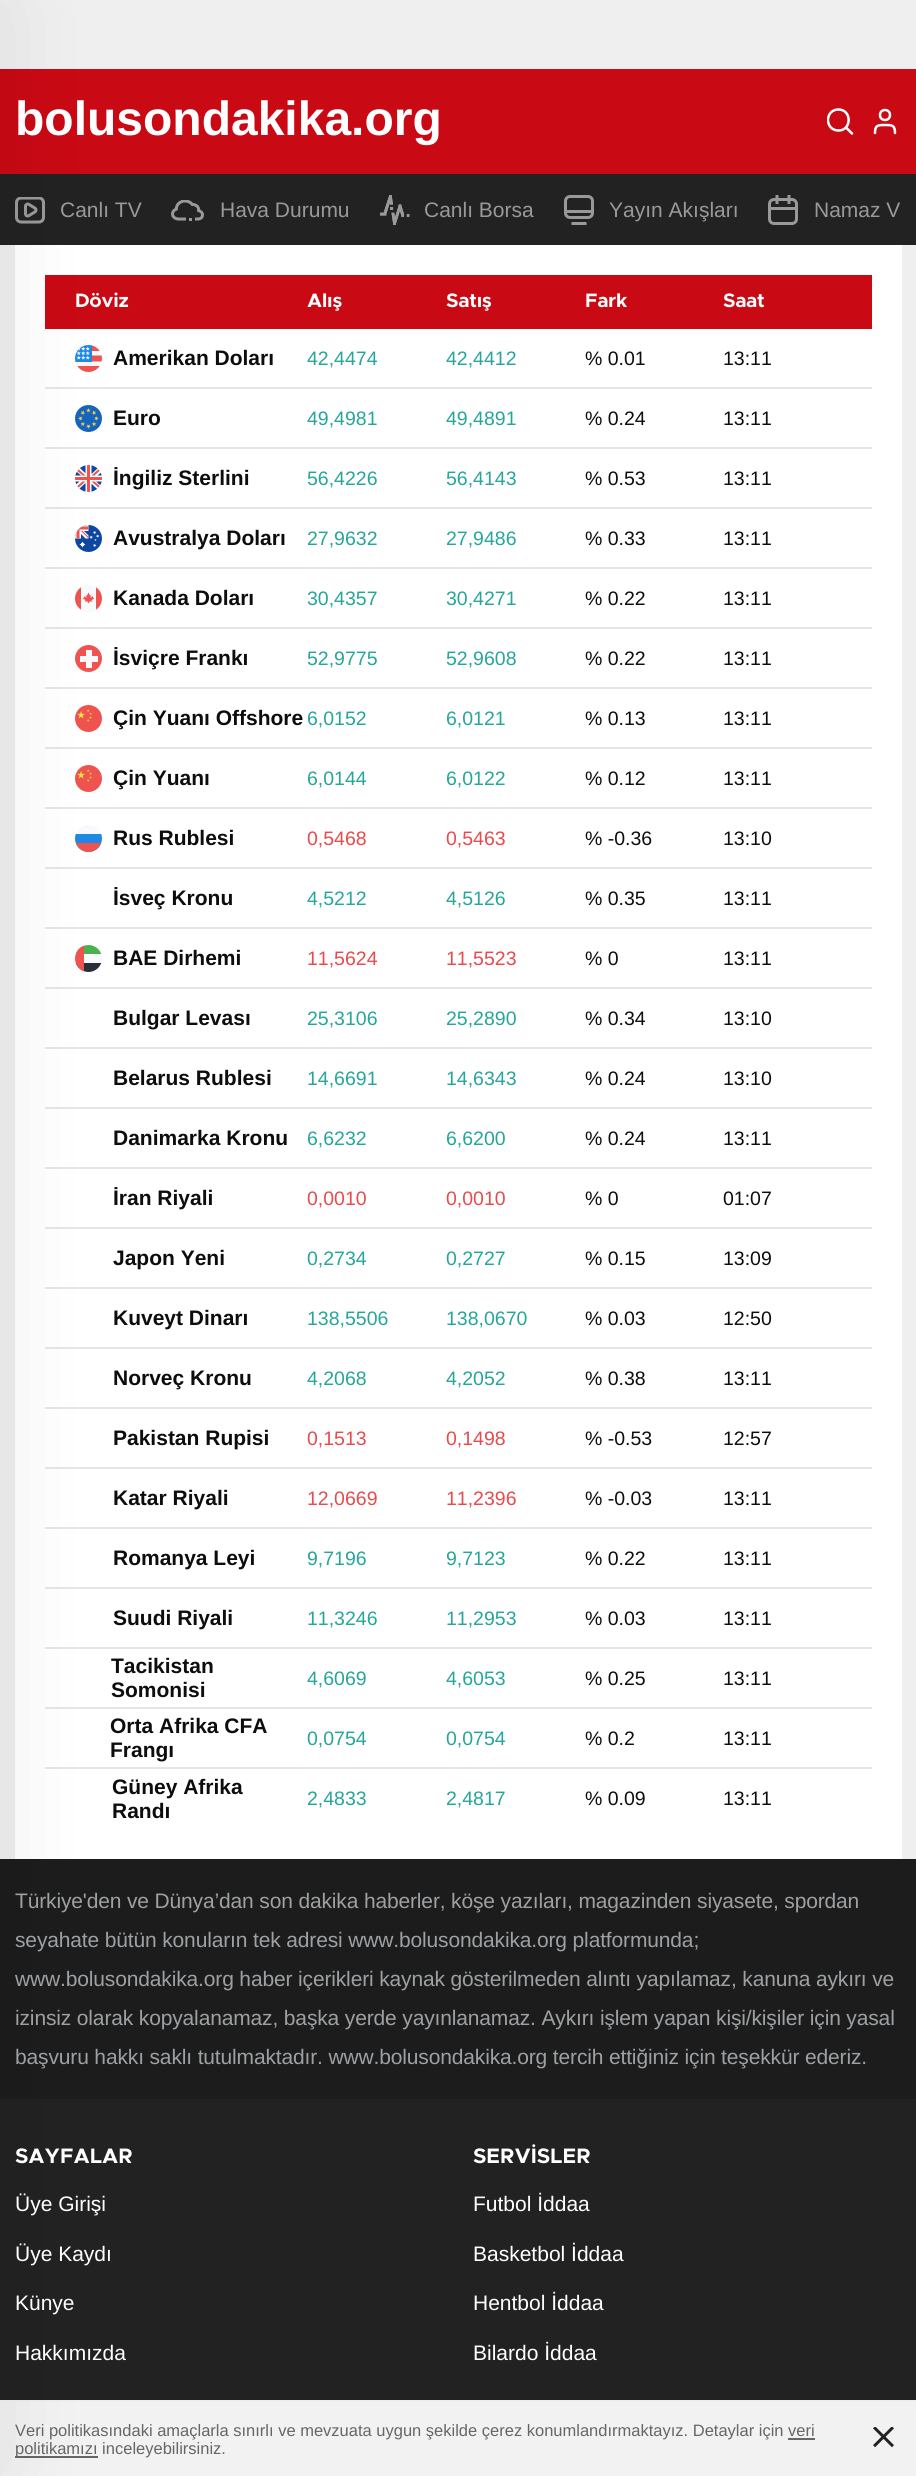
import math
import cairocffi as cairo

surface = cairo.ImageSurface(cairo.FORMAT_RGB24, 916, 2476)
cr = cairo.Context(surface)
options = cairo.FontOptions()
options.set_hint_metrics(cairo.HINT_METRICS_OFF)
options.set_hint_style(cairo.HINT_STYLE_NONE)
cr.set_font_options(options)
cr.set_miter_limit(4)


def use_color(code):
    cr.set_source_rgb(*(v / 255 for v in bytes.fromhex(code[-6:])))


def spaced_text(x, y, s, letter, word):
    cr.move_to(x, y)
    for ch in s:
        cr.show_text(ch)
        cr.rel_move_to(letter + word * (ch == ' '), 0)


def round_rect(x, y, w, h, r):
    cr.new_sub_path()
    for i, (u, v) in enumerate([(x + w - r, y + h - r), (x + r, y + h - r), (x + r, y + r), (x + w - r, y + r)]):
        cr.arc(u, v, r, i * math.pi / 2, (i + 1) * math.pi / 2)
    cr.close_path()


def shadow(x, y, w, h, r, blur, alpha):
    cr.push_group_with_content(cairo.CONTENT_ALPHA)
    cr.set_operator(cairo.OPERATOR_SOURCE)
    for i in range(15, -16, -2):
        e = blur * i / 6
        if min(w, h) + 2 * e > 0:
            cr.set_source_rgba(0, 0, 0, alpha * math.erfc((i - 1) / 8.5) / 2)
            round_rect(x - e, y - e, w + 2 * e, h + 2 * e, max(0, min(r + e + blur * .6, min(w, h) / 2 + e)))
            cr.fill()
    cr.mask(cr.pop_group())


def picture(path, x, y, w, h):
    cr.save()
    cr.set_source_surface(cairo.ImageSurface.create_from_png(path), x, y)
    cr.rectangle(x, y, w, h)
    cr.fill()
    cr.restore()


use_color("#efefef")
cr.paint()
use_color("#c90914")
cr.rectangle(0, 69, 916, 105)
cr.fill()
use_color("#222222")
cr.rectangle(0, 174, 916, 71)
cr.fill()
picture("img1.png", 15, 197, 30, 27)
use_color("#ffffff")
cr.rectangle(15, 245, 887, 1614)
cr.fill()
use_color("#c90914")
cr.rectangle(45, 275, 827, 54)
cr.fill()
use_color("#e6e6e6")
cr.rectangle(45, 387, 827, 2)
cr.fill()
picture("img6.png", 75, 345, 27, 27)
cr.rectangle(45, 447, 827, 2)
cr.fill()
picture("img7.png", 75, 405, 27, 27)
cr.rectangle(45, 507, 827, 2)
cr.fill()
picture("img8.png", 75, 465, 27, 27)
cr.rectangle(45, 567, 827, 2)
cr.fill()
picture("img9.png", 75, 525, 27, 27)
cr.rectangle(45, 627, 827, 2)
cr.fill()
picture("img10.png", 75, 585, 27, 27)
cr.rectangle(45, 687, 827, 2)
cr.fill()
use_color("#ef5350")
cr.arc(88.5, 658.5, 13.5, 0, 2 * math.pi)
cr.fill()
use_color("#f8f9fd")
cr.rectangle(80, 656, 18, 6)
cr.fill()
cr.rectangle(86, 650, 6, 18)
cr.fill()
use_color("#e6e6e6")
cr.rectangle(45, 747, 827, 2)
cr.fill()
picture("img11.png", 75, 705, 27, 27)
cr.rectangle(45, 807, 827, 2)
cr.fill()
picture("img11.png", 75, 765, 27, 27)
cr.rectangle(45, 867, 827, 2)
cr.fill()
use_color("#f8f9fd")
cr.arc(88.5, 838.5, 13.5, 0, 2 * math.pi)
cr.fill()
cr.save()
round_rect(75, 825, 27, 27, 13.5)
cr.clip()
use_color("#1e88e5")
cr.new_path()
cr.move_to(75, 834)
cr.line_to(102, 834)
cr.line_to(102, 838.5)
cr.curve_to(102, 846, 96, 852, 88.5, 852)
cr.curve_to(81, 852, 75, 846, 75, 838.5)
cr.close_path()
cr.fill()
use_color("#ef5350")
cr.rectangle(75, 843, 27, 9)
cr.fill()
cr.restore()
use_color("#e6e6e6")
cr.rectangle(45, 927, 827, 2)
cr.fill()
cr.rectangle(45, 987, 827, 2)
cr.fill()
cr.save()
round_rect(75, 945, 27, 27, 13.5)
cr.clip()
use_color("#4caf50")
cr.rectangle(75, 945, 27, 9)
cr.fill()
use_color("#f8f9fd")
cr.rectangle(75, 954, 27, 9)
cr.fill()
use_color("#2a2e39")
cr.rectangle(75, 963, 27, 9)
cr.fill()
use_color("#ef5350")
cr.rectangle(75, 945, 9, 27)
cr.fill()
cr.restore()
cr.rectangle(45, 1047, 827, 2)
cr.fill()
cr.rectangle(45, 1107, 827, 2)
cr.fill()
cr.rectangle(45, 1167, 827, 2)
cr.fill()
cr.rectangle(45, 1227, 827, 2)
cr.fill()
cr.rectangle(45, 1287, 827, 2)
cr.fill()
cr.rectangle(45, 1347, 827, 2)
cr.fill()
cr.rectangle(45, 1407, 827, 2)
cr.fill()
cr.rectangle(45, 1467, 827, 2)
cr.fill()
cr.rectangle(45, 1527, 827, 2)
cr.fill()
cr.rectangle(45, 1587, 827, 2)
cr.fill()
cr.rectangle(45, 1647, 827, 2)
cr.fill()
cr.rectangle(45, 1707, 827, 2)
cr.fill()
cr.rectangle(45, 1767, 827, 2)
cr.fill()
use_color("#222222")
cr.rectangle(0, 2099, 916, 377)
cr.fill()
use_color("#1c1c1c")
cr.rectangle(0, 1859, 916, 240)
cr.fill()
cr.set_source_rgba(1, 1, 1, 0.94)
cr.rectangle(0, 2402, 916, 74)
cr.fill()
use_color("#eeeeee")
cr.rectangle(0, 2400, 916, 2)
cr.fill()
use_color("#666666")
cr.rectangle(15, 2456, 83, 2)
cr.fill()
use_color("#000000")
shadow(-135, 8, 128, 2461, 0, 45, 0.1)
cr.select_font_face("Liberation Sans", cairo.FONT_SLANT_NORMAL, cairo.FONT_WEIGHT_BOLD)
cr.set_font_size(48)
use_color("#ffffff")
cr.move_to(15, 135)
cr.show_text("bolusondakika.org")
cr.save()
cr.rectangle(827, 108, 27, 27)
cr.clip()
cr.new_path()
cr.move_to(838.5, 130.5)
cr.curve_to(852, 130.5, 852, 109.5, 838.5, 109.5)
cr.curve_to(824.5, 109.5, 824.5, 130.5, 838.5, 130.5)
cr.close_path()
cr.set_line_width(2.5)
cr.set_line_cap(cairo.LINE_CAP_ROUND)
cr.set_line_join(cairo.LINE_JOIN_ROUND)
cr.stroke()
cr.restore()
cr.new_path()
cr.move_to(846, 127.5)
cr.line_to(852, 133.5)
cr.move_to(895, 133)
cr.curve_to(895, 125, 892, 125, 885, 125)
cr.curve_to(878, 125, 875, 125, 875, 133)
cr.set_line_width(2.5)
cr.set_line_cap(cairo.LINE_CAP_ROUND)
cr.set_line_join(cairo.LINE_JOIN_ROUND)
cr.stroke()
cr.arc(885, 115, 5, 0, 2 * math.pi)
cr.set_line_cap(cairo.LINE_CAP_BUTT)
cr.set_line_join(cairo.LINE_JOIN_MITER)
cr.stroke()
cr.select_font_face("Liberation Sans")
cr.set_font_size(21)
use_color("#999999")
cr.move_to(60, 217)
cr.show_text("Canlı TV")
picture("img2.png", 171, 200, 33, 21)
cr.move_to(220, 217)
cr.show_text("Hava Durumu")
picture("img3.png", 380, 195, 30, 30)
cr.move_to(424, 217)
cr.show_text("Canlı Borsa")
picture("img4.png", 564, 195, 30, 30)
cr.move_to(609, 217)
cr.show_text("Yayın Akışları")
picture("img5.png", 768, 195, 30, 30)
cr.move_to(814, 217)
cr.show_text("Namaz V")
cr.select_font_face("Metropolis", cairo.FONT_SLANT_NORMAL, cairo.FONT_WEIGHT_BOLD)
cr.set_font_size(19.5)
use_color("#ffffff")
cr.move_to(75, 307)
cr.show_text("Döviz")
cr.move_to(307, 307)
cr.show_text("Alış")
cr.move_to(446, 307)
cr.show_text("Satış")
cr.move_to(585, 307)
cr.show_text("Fark")
cr.move_to(723, 307)
cr.show_text("Saat")
cr.select_font_face("Liberation Sans", cairo.FONT_SLANT_NORMAL, cairo.FONT_WEIGHT_BOLD)
cr.set_font_size(21)
use_color("#0d0d0d")
cr.move_to(113, 365)
cr.show_text("Amerikan Doları")
cr.select_font_face("Liberation Sans")
cr.set_font_size(19.5)
use_color("#26a69a")
cr.move_to(307, 365)
cr.show_text("42,4474")
cr.move_to(446, 365)
cr.show_text("42,4412")
use_color("#0d0d0d")
cr.move_to(585, 365)
cr.show_text("% 0.01")
cr.move_to(723, 365)
cr.show_text("13:11")
cr.select_font_face("Liberation Sans", cairo.FONT_SLANT_NORMAL, cairo.FONT_WEIGHT_BOLD)
cr.set_font_size(21)
cr.move_to(113, 425)
cr.show_text("Euro")
cr.select_font_face("Liberation Sans")
cr.set_font_size(19.5)
use_color("#26a69a")
cr.move_to(307, 425)
cr.show_text("49,4981")
cr.move_to(446, 425)
cr.show_text("49,4891")
use_color("#0d0d0d")
cr.move_to(585, 425)
cr.show_text("% 0.24")
cr.move_to(723, 425)
cr.show_text("13:11")
cr.select_font_face("Liberation Sans", cairo.FONT_SLANT_NORMAL, cairo.FONT_WEIGHT_BOLD)
cr.set_font_size(21)
cr.move_to(113, 485)
cr.show_text("İngiliz Sterlini")
cr.select_font_face("Liberation Sans")
cr.set_font_size(19.5)
use_color("#26a69a")
cr.move_to(307, 485)
cr.show_text("56,4226")
cr.move_to(446, 485)
cr.show_text("56,4143")
use_color("#0d0d0d")
cr.move_to(585, 485)
cr.show_text("% 0.53")
cr.move_to(723, 485)
cr.show_text("13:11")
cr.select_font_face("Liberation Sans", cairo.FONT_SLANT_NORMAL, cairo.FONT_WEIGHT_BOLD)
cr.set_font_size(21)
cr.move_to(113, 545)
cr.show_text("Avustralya Doları")
cr.select_font_face("Liberation Sans")
cr.set_font_size(19.5)
use_color("#26a69a")
cr.move_to(307, 545)
cr.show_text("27,9632")
cr.move_to(446, 545)
cr.show_text("27,9486")
use_color("#0d0d0d")
cr.move_to(585, 545)
cr.show_text("% 0.33")
cr.move_to(723, 545)
cr.show_text("13:11")
cr.select_font_face("Liberation Sans", cairo.FONT_SLANT_NORMAL, cairo.FONT_WEIGHT_BOLD)
cr.set_font_size(21)
cr.move_to(113, 605)
cr.show_text("Kanada Doları")
cr.select_font_face("Liberation Sans")
cr.set_font_size(19.5)
use_color("#26a69a")
cr.move_to(307, 605)
cr.show_text("30,4357")
cr.move_to(446, 605)
cr.show_text("30,4271")
use_color("#0d0d0d")
cr.move_to(585, 605)
cr.show_text("% 0.22")
cr.move_to(723, 605)
cr.show_text("13:11")
cr.select_font_face("Liberation Sans", cairo.FONT_SLANT_NORMAL, cairo.FONT_WEIGHT_BOLD)
cr.set_font_size(21)
cr.move_to(113, 665)
cr.show_text("İsviçre Frankı")
cr.select_font_face("Liberation Sans")
cr.set_font_size(19.5)
use_color("#26a69a")
cr.move_to(307, 665)
cr.show_text("52,9775")
cr.move_to(446, 665)
cr.show_text("52,9608")
use_color("#0d0d0d")
cr.move_to(585, 665)
cr.show_text("% 0.22")
cr.move_to(723, 665)
cr.show_text("13:11")
cr.select_font_face("Liberation Sans", cairo.FONT_SLANT_NORMAL, cairo.FONT_WEIGHT_BOLD)
cr.set_font_size(21)
cr.move_to(113, 725)
cr.show_text("Çin Yuanı Offshore")
cr.select_font_face("Liberation Sans")
cr.set_font_size(19.5)
use_color("#26a69a")
cr.move_to(307, 725)
cr.show_text("6,0152")
cr.move_to(446, 725)
cr.show_text("6,0121")
use_color("#0d0d0d")
cr.move_to(585, 725)
cr.show_text("% 0.13")
cr.move_to(723, 725)
cr.show_text("13:11")
cr.select_font_face("Liberation Sans", cairo.FONT_SLANT_NORMAL, cairo.FONT_WEIGHT_BOLD)
cr.set_font_size(21)
cr.move_to(113, 785)
cr.show_text("Çin Yuanı")
cr.select_font_face("Liberation Sans")
cr.set_font_size(19.5)
use_color("#26a69a")
cr.move_to(307, 785)
cr.show_text("6,0144")
cr.move_to(446, 785)
cr.show_text("6,0122")
use_color("#0d0d0d")
cr.move_to(585, 785)
cr.show_text("% 0.12")
cr.move_to(723, 785)
cr.show_text("13:11")
cr.select_font_face("Liberation Sans", cairo.FONT_SLANT_NORMAL, cairo.FONT_WEIGHT_BOLD)
cr.set_font_size(21)
cr.move_to(113, 845)
cr.show_text("Rus Rublesi")
cr.select_font_face("Liberation Sans")
cr.set_font_size(19.5)
use_color("#e74b4c")
cr.move_to(307, 845)
cr.show_text("0,5468")
cr.move_to(446, 845)
cr.show_text("0,5463")
use_color("#0d0d0d")
cr.move_to(585, 845)
cr.show_text("% -0.36")
cr.move_to(723, 845)
cr.show_text("13:10")
cr.select_font_face("Liberation Sans", cairo.FONT_SLANT_NORMAL, cairo.FONT_WEIGHT_BOLD)
cr.set_font_size(21)
cr.move_to(113, 905)
cr.show_text("İsveç Kronu")
cr.select_font_face("Liberation Sans")
cr.set_font_size(19.5)
use_color("#26a69a")
cr.move_to(307, 905)
cr.show_text("4,5212")
cr.move_to(446, 905)
cr.show_text("4,5126")
use_color("#0d0d0d")
cr.move_to(585, 905)
cr.show_text("% 0.35")
cr.move_to(723, 905)
cr.show_text("13:11")
cr.select_font_face("Liberation Sans", cairo.FONT_SLANT_NORMAL, cairo.FONT_WEIGHT_BOLD)
cr.set_font_size(21)
cr.move_to(113, 965)
cr.show_text("BAE Dirhemi")
cr.select_font_face("Liberation Sans")
cr.set_font_size(19.5)
use_color("#e74b4c")
cr.move_to(307, 965)
cr.show_text("11,5624")
cr.move_to(446, 965)
cr.show_text("11,5523")
use_color("#0d0d0d")
cr.move_to(585, 965)
cr.show_text("% 0")
cr.move_to(723, 965)
cr.show_text("13:11")
cr.select_font_face("Liberation Sans", cairo.FONT_SLANT_NORMAL, cairo.FONT_WEIGHT_BOLD)
cr.set_font_size(21)
cr.move_to(113, 1025)
cr.show_text("Bulgar Levası")
cr.select_font_face("Liberation Sans")
cr.set_font_size(19.5)
use_color("#26a69a")
cr.move_to(307, 1025)
cr.show_text("25,3106")
cr.move_to(446, 1025)
cr.show_text("25,2890")
use_color("#0d0d0d")
cr.move_to(585, 1025)
cr.show_text("% 0.34")
cr.move_to(723, 1025)
cr.show_text("13:10")
cr.select_font_face("Liberation Sans", cairo.FONT_SLANT_NORMAL, cairo.FONT_WEIGHT_BOLD)
cr.set_font_size(21)
cr.move_to(113, 1085)
cr.show_text("Belarus Rublesi")
cr.select_font_face("Liberation Sans")
cr.set_font_size(19.5)
use_color("#26a69a")
cr.move_to(307, 1085)
cr.show_text("14,6691")
cr.move_to(446, 1085)
cr.show_text("14,6343")
use_color("#0d0d0d")
cr.move_to(585, 1085)
cr.show_text("% 0.24")
cr.move_to(723, 1085)
cr.show_text("13:10")
cr.select_font_face("Liberation Sans", cairo.FONT_SLANT_NORMAL, cairo.FONT_WEIGHT_BOLD)
cr.set_font_size(21)
cr.move_to(113, 1145)
cr.show_text("Danimarka Kronu")
cr.select_font_face("Liberation Sans")
cr.set_font_size(19.5)
use_color("#26a69a")
cr.move_to(307, 1145)
cr.show_text("6,6232")
cr.move_to(446, 1145)
cr.show_text("6,6200")
use_color("#0d0d0d")
cr.move_to(585, 1145)
cr.show_text("% 0.24")
cr.move_to(723, 1145)
cr.show_text("13:11")
cr.select_font_face("Liberation Sans", cairo.FONT_SLANT_NORMAL, cairo.FONT_WEIGHT_BOLD)
cr.set_font_size(21)
cr.move_to(113, 1205)
cr.show_text("İran Riyali")
cr.select_font_face("Liberation Sans")
cr.set_font_size(19.5)
use_color("#e74b4c")
cr.move_to(307, 1205)
cr.show_text("0,0010")
cr.move_to(446, 1205)
cr.show_text("0,0010")
use_color("#0d0d0d")
cr.move_to(585, 1205)
cr.show_text("% 0")
cr.move_to(723, 1205)
cr.show_text("01:07")
cr.select_font_face("Liberation Sans", cairo.FONT_SLANT_NORMAL, cairo.FONT_WEIGHT_BOLD)
cr.set_font_size(21)
cr.move_to(113, 1265)
cr.show_text("Japon Yeni")
cr.select_font_face("Liberation Sans")
cr.set_font_size(19.5)
use_color("#26a69a")
cr.move_to(307, 1265)
cr.show_text("0,2734")
cr.move_to(446, 1265)
cr.show_text("0,2727")
use_color("#0d0d0d")
cr.move_to(585, 1265)
cr.show_text("% 0.15")
cr.move_to(723, 1265)
cr.show_text("13:09")
cr.select_font_face("Liberation Sans", cairo.FONT_SLANT_NORMAL, cairo.FONT_WEIGHT_BOLD)
cr.set_font_size(21)
cr.move_to(113, 1325)
cr.show_text("Kuveyt Dinarı")
cr.select_font_face("Liberation Sans")
cr.set_font_size(19.5)
use_color("#26a69a")
cr.move_to(307, 1325)
cr.show_text("138,5506")
cr.move_to(446, 1325)
cr.show_text("138,0670")
use_color("#0d0d0d")
cr.move_to(585, 1325)
cr.show_text("% 0.03")
cr.move_to(723, 1325)
cr.show_text("12:50")
cr.select_font_face("Liberation Sans", cairo.FONT_SLANT_NORMAL, cairo.FONT_WEIGHT_BOLD)
cr.set_font_size(21)
cr.move_to(113, 1385)
cr.show_text("Norveç Kronu")
cr.select_font_face("Liberation Sans")
cr.set_font_size(19.5)
use_color("#26a69a")
cr.move_to(307, 1385)
cr.show_text("4,2068")
cr.move_to(446, 1385)
cr.show_text("4,2052")
use_color("#0d0d0d")
cr.move_to(585, 1385)
cr.show_text("% 0.38")
cr.move_to(723, 1385)
cr.show_text("13:11")
cr.select_font_face("Liberation Sans", cairo.FONT_SLANT_NORMAL, cairo.FONT_WEIGHT_BOLD)
cr.set_font_size(21)
cr.move_to(113, 1445)
cr.show_text("Pakistan Rupisi")
cr.select_font_face("Liberation Sans")
cr.set_font_size(19.5)
use_color("#e74b4c")
cr.move_to(307, 1445)
cr.show_text("0,1513")
cr.move_to(446, 1445)
cr.show_text("0,1498")
use_color("#0d0d0d")
cr.move_to(585, 1445)
cr.show_text("% -0.53")
cr.move_to(723, 1445)
cr.show_text("12:57")
cr.select_font_face("Liberation Sans", cairo.FONT_SLANT_NORMAL, cairo.FONT_WEIGHT_BOLD)
cr.set_font_size(21)
cr.move_to(113, 1505)
cr.show_text("Katar Riyali")
cr.select_font_face("Liberation Sans")
cr.set_font_size(19.5)
use_color("#e74b4c")
cr.move_to(307, 1505)
cr.show_text("12,0669")
cr.move_to(446, 1505)
cr.show_text("11,2396")
use_color("#0d0d0d")
cr.move_to(585, 1505)
cr.show_text("% -0.03")
cr.move_to(723, 1505)
cr.show_text("13:11")
cr.select_font_face("Liberation Sans", cairo.FONT_SLANT_NORMAL, cairo.FONT_WEIGHT_BOLD)
cr.set_font_size(21)
cr.move_to(113, 1565)
cr.show_text("Romanya Leyi")
cr.select_font_face("Liberation Sans")
cr.set_font_size(19.5)
use_color("#26a69a")
cr.move_to(307, 1565)
cr.show_text("9,7196")
cr.move_to(446, 1565)
cr.show_text("9,7123")
use_color("#0d0d0d")
cr.move_to(585, 1565)
cr.show_text("% 0.22")
cr.move_to(723, 1565)
cr.show_text("13:11")
cr.select_font_face("Liberation Sans", cairo.FONT_SLANT_NORMAL, cairo.FONT_WEIGHT_BOLD)
cr.set_font_size(21)
cr.move_to(113, 1625)
cr.show_text("Suudi Riyali")
cr.select_font_face("Liberation Sans")
cr.set_font_size(19.5)
use_color("#26a69a")
cr.move_to(307, 1625)
cr.show_text("11,3246")
cr.move_to(446, 1625)
cr.show_text("11,2953")
use_color("#0d0d0d")
cr.move_to(585, 1625)
cr.show_text("% 0.03")
cr.move_to(723, 1625)
cr.show_text("13:11")
cr.select_font_face("Liberation Sans", cairo.FONT_SLANT_NORMAL, cairo.FONT_WEIGHT_BOLD)
cr.set_font_size(21)
cr.move_to(111, 1673)
cr.show_text("Tacikistan")
cr.move_to(111, 1697)
cr.show_text("Somonisi")
cr.select_font_face("Liberation Sans")
cr.set_font_size(19.5)
use_color("#26a69a")
cr.move_to(307, 1685)
cr.show_text("4,6069")
cr.move_to(446, 1685)
cr.show_text("4,6053")
use_color("#0d0d0d")
cr.move_to(585, 1685)
cr.show_text("% 0.25")
cr.move_to(723, 1685)
cr.show_text("13:11")
cr.select_font_face("Liberation Sans", cairo.FONT_SLANT_NORMAL, cairo.FONT_WEIGHT_BOLD)
cr.set_font_size(21)
cr.move_to(110, 1733)
cr.show_text("Orta Afrika CFA")
cr.move_to(110, 1757)
cr.show_text("Frangı")
cr.select_font_face("Liberation Sans")
cr.set_font_size(19.5)
use_color("#26a69a")
cr.move_to(307, 1745)
cr.show_text("0,0754")
cr.move_to(446, 1745)
cr.show_text("0,0754")
use_color("#0d0d0d")
cr.move_to(585, 1745)
cr.show_text("% 0.2")
cr.move_to(723, 1745)
cr.show_text("13:11")
cr.select_font_face("Liberation Sans", cairo.FONT_SLANT_NORMAL, cairo.FONT_WEIGHT_BOLD)
cr.set_font_size(21)
cr.move_to(112, 1794)
cr.show_text("Güney Afrika")
cr.move_to(112, 1818)
cr.show_text("Randı")
cr.select_font_face("Liberation Sans")
cr.set_font_size(19.5)
use_color("#26a69a")
cr.move_to(307, 1805)
cr.show_text("2,4833")
cr.move_to(446, 1805)
cr.show_text("2,4817")
use_color("#0d0d0d")
cr.move_to(585, 1805)
cr.show_text("% 0.09")
cr.move_to(723, 1805)
cr.show_text("13:11")
cr.set_font_size(21)
use_color("#9da1a4")
spaced_text(15, 1908, "Türkiye'den ve Dünya’dan son dakika haberler, köşe yazıları, magazinden siyasete, spordan", -0.15, 0)
spaced_text(15, 1947, "seyahate bütün konuların tek adresi www.bolusondakika.org platformunda;", -0.15, 0)
spaced_text(15, 1986, "www.bolusondakika.org haber içerikleri kaynak gösterilmeden alıntı yapılamaz, kanuna aykırı ve", -0.15, 0)
spaced_text(15, 2025, "izinsiz olarak kopyalanamaz, başka yerde yayınlanamaz. Aykırı işlem yapan kişi/kişiler için yasal", -0.15, 0)
spaced_text(15, 2064, "başvuru hakkı saklı tutulmaktadır. www.bolusondakika.org tercih ettiğiniz için teşekkür ederiz.", -0.15, 0)
cr.select_font_face("Metropolis", cairo.FONT_SLANT_NORMAL, cairo.FONT_WEIGHT_BOLD)
use_color("#ffffff")
cr.move_to(15, 2163)
cr.show_text("SAYFALAR")
cr.select_font_face("Liberation Sans")
cr.move_to(15, 2211)
cr.show_text("Üye Girişi")
cr.move_to(15, 2261)
cr.show_text("Üye Kaydı")
cr.move_to(15, 2310)
cr.show_text("Künye")
cr.move_to(15, 2360)
cr.show_text("Hakkımızda")
cr.select_font_face("Metropolis", cairo.FONT_SLANT_NORMAL, cairo.FONT_WEIGHT_BOLD)
cr.move_to(473, 2163)
cr.show_text("SERVİSLER")
cr.select_font_face("Liberation Sans")
cr.move_to(473, 2211)
cr.show_text("Futbol İddaa")
cr.move_to(473, 2261)
cr.show_text("Basketbol İddaa")
cr.move_to(473, 2310)
cr.show_text("Hentbol İddaa")
cr.move_to(473, 2360)
cr.show_text("Bilardo İddaa")
cr.set_font_size(16.5)
use_color("#666666")
cr.move_to(15, 2436)
cr.show_text("Veri politikasındaki amaçlarla sınırlı ve mevzuata uygun şekilde çerez konumlandırmaktayız. Detaylar için veri")
cr.move_to(15, 2454)
cr.show_text("politikamızı inceleyebilirsiniz.")
cr.rectangle(788, 2438, 27, 2)
cr.fill()
picture("img12.png", 873, 2427, 21, 21)
surface.write_to_png("result.png")
